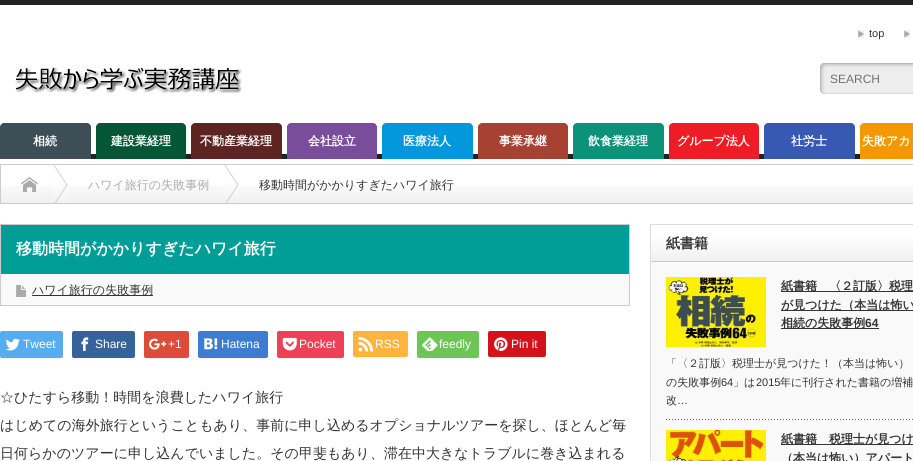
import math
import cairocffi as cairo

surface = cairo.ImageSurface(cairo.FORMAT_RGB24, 913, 461)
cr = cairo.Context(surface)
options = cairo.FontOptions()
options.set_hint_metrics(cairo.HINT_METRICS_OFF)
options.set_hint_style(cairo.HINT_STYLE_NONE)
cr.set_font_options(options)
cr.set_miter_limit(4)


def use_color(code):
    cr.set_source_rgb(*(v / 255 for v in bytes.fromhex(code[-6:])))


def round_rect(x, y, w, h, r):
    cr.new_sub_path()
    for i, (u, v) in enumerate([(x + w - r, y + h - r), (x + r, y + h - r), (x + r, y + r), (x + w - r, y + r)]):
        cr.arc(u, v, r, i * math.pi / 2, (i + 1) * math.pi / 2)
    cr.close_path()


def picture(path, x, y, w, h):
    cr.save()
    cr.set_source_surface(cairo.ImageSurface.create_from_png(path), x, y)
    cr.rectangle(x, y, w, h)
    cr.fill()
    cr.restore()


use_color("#ffffff")
cr.paint()
use_color("#222222")
cr.rectangle(0, 0, 913, 5)
cr.fill()
picture("img1.png", 858, 30, 6, 8)
cr.select_font_face("Liberation Sans")
cr.set_font_size(11)
use_color("#333333")
cr.move_to(869, 37)
cr.show_text("top")
picture("img1.png", 904, 30, 6, 8)
picture("img2.png", 15, 67, 227, 26)
picture("img3.png", 820, 63, 93, 31)
cr.set_font_size(12)
use_color("#6d7478")
cr.move_to(830, 83)
cr.show_text("SEARCH")
use_color("#222222")
cr.rectangle(91, 154, 769, 5)
cr.fill()
use_color("#3d4e56")
cr.new_path()
cr.move_to(4, 123)
cr.line_to(87, 123)
cr.curve_to(89, 123, 91, 125, 91, 127)
cr.line_to(91, 159)
cr.line_to(0, 159)
cr.line_to(0, 127)
cr.curve_to(0, 125, 2, 123, 4, 123)
cr.close_path()
cr.fill()
cr.select_font_face("WenQuanYi Zen Hei", cairo.FONT_SLANT_NORMAL, cairo.FONT_WEIGHT_BOLD)
use_color("#ffffff")
cr.move_to(33, 145)
cr.show_text("相続")
use_color("#045636")
cr.new_path()
cr.move_to(100, 123)
cr.line_to(182, 123)
cr.curve_to(184, 123, 186, 125, 186, 127)
cr.line_to(186, 159)
cr.line_to(96, 159)
cr.line_to(96, 127)
cr.curve_to(96, 125, 98, 123, 100, 123)
cr.close_path()
cr.fill()
use_color("#ffffff")
cr.move_to(111, 145)
cr.show_text("建設業経理")
use_color("#5d2422")
cr.new_path()
cr.move_to(195, 123)
cr.line_to(278, 123)
cr.curve_to(280, 123, 282, 125, 282, 127)
cr.line_to(282, 159)
cr.line_to(191, 159)
cr.line_to(191, 127)
cr.curve_to(191, 125, 193, 123, 195, 123)
cr.close_path()
cr.fill()
use_color("#ffffff")
cr.move_to(200, 145)
cr.show_text("不動産業経理")
use_color("#7a4c9c")
cr.new_path()
cr.move_to(291, 123)
cr.line_to(373, 123)
cr.curve_to(375, 123, 377, 125, 377, 127)
cr.line_to(377, 159)
cr.line_to(287, 159)
cr.line_to(287, 127)
cr.curve_to(287, 125, 289, 123, 291, 123)
cr.close_path()
cr.fill()
use_color("#ffffff")
cr.move_to(308, 145)
cr.show_text("会社設立")
use_color("#0398dc")
cr.new_path()
cr.move_to(386, 123)
cr.line_to(469, 123)
cr.curve_to(471, 123, 473, 125, 473, 127)
cr.line_to(473, 159)
cr.line_to(382, 159)
cr.line_to(382, 127)
cr.curve_to(382, 125, 384, 123, 386, 123)
cr.close_path()
cr.fill()
use_color("#ffffff")
cr.move_to(403, 145)
cr.show_text("医療法人")
use_color("#a74132")
cr.new_path()
cr.move_to(482, 123)
cr.line_to(564, 123)
cr.curve_to(566, 123, 568, 125, 568, 127)
cr.line_to(568, 159)
cr.line_to(478, 159)
cr.line_to(478, 127)
cr.curve_to(478, 125, 480, 123, 482, 123)
cr.close_path()
cr.fill()
use_color("#ffffff")
cr.move_to(499, 145)
cr.show_text("事業承継")
use_color("#0c9279")
cr.new_path()
cr.move_to(577, 123)
cr.line_to(660, 123)
cr.curve_to(662, 123, 664, 125, 664, 127)
cr.line_to(664, 159)
cr.line_to(573, 159)
cr.line_to(573, 127)
cr.curve_to(573, 125, 575, 123, 577, 123)
cr.close_path()
cr.fill()
use_color("#ffffff")
cr.move_to(588, 145)
cr.show_text("飲食業経理")
use_color("#ee1c25")
cr.new_path()
cr.move_to(673, 123)
cr.line_to(755, 123)
cr.curve_to(757, 123, 759, 125, 759, 127)
cr.line_to(759, 159)
cr.line_to(669, 159)
cr.line_to(669, 127)
cr.curve_to(669, 125, 671, 123, 673, 123)
cr.close_path()
cr.fill()
use_color("#ffffff")
cr.move_to(677, 145)
cr.show_text("グループ法人")
use_color("#3758b3")
cr.new_path()
cr.move_to(768, 123)
cr.line_to(851, 123)
cr.curve_to(853, 123, 855, 125, 855, 127)
cr.line_to(855, 159)
cr.line_to(764, 159)
cr.line_to(764, 127)
cr.curve_to(764, 125, 766, 123, 768, 123)
cr.close_path()
cr.fill()
use_color("#ffffff")
cr.move_to(791, 145)
cr.show_text("社労士")
use_color("#f39800")
cr.new_path()
cr.move_to(864, 123)
cr.line_to(913, 123)
cr.curve_to(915, 123, 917, 125, 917, 127)
cr.line_to(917, 159)
cr.line_to(860, 159)
cr.line_to(860, 127)
cr.curve_to(860, 125, 862, 123, 864, 123)
cr.close_path()
cr.fill()
use_color("#ffffff")
cr.move_to(862, 145)
cr.show_text("失敗アカ")
picture("img4.png", 1, 185, 912, 18)
cr.rectangle(0.5, 164.5, 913, 39)
use_color("#cccccc")
cr.set_line_width(1)
cr.stroke()
picture("img5.png", 53, 165, 15, 38)
picture("img6.png", 21, 177, 17, 15)
picture("img5.png", 224, 165, 15, 38)
cr.select_font_face("WenQuanYi Zen Hei Medium")
use_color("#aaaaaa")
cr.move_to(88, 189)
cr.show_text("ハワイ旅行の失敗事例")
use_color("#333333")
cr.move_to(259, 189)
cr.show_text("移動時間がかかりすぎたハワイ旅行")
cr.rectangle(0.5, 224.5, 629, 81)
use_color("#cccccc")
cr.stroke()
use_color("#009e96")
cr.rectangle(1, 225, 628, 49)
cr.fill()
cr.select_font_face("WenQuanYi Zen Hei", cairo.FONT_SLANT_NORMAL, cairo.FONT_WEIGHT_BOLD)
cr.set_font_size(16)
use_color("#ffffff")
cr.move_to(16, 254)
cr.show_text("移動時間がかかりすぎたハワイ旅行")
use_color("#f9f9f9")
cr.rectangle(1, 274, 628, 31)
cr.fill()
picture("img7.png", 16, 285, 10, 12)
use_color("#333333")
cr.rectangle(32, 295, 121, 1)
cr.fill()
cr.select_font_face("WenQuanYi Zen Hei Medium")
cr.set_font_size(12)
cr.move_to(32, 294)
cr.show_text("ハワイ旅行の失敗事例")
use_color("#f7f7f7")
cr.new_path()
cr.move_to(0, 356)
cr.curve_to(0, 362, 8, 359, 12, 359)
cr.line_to(51, 359)
cr.curve_to(55, 359, 63, 362, 63, 356)
cr.curve_to(63, 360, 55, 358, 51, 358)
cr.line_to(1, 358)
cr.close_path()
cr.fill()
use_color("#55acee")
round_rect(0, 331, 63, 27, 2)
cr.fill()
picture("img8.png", 5, 338, 15, 13)
cr.select_font_face("Liberation Sans")
use_color("#ffffff")
cr.move_to(23, 348)
cr.show_text("Tweet")
use_color("#f7f7f7")
cr.new_path()
cr.move_to(72, 356)
cr.curve_to(72, 362, 80, 359, 84, 359)
cr.line_to(123, 359)
cr.curve_to(127, 359, 135, 362, 135, 356)
cr.line_to(134, 358)
cr.line_to(84, 358)
cr.curve_to(80, 358, 72, 360, 72, 356)
cr.close_path()
cr.fill()
use_color("#35629a")
round_rect(72, 331, 63, 27, 2)
cr.fill()
picture("img9.png", 81, 337, 8, 14)
use_color("#ffffff")
cr.move_to(95, 348)
cr.show_text("Share")
use_color("#f7f7f7")
cr.new_path()
cr.move_to(144, 356)
cr.curve_to(144, 361, 149, 359, 153, 359)
cr.line_to(180, 359)
cr.curve_to(184, 359, 189, 361, 189, 356)
cr.curve_to(189, 357, 188, 358, 187, 358)
cr.line_to(146, 358)
cr.curve_to(145, 358, 144, 357, 144, 356)
cr.close_path()
cr.fill()
use_color("#dd4b39")
round_rect(144, 331, 45, 27, 2)
cr.fill()
picture("img10.png", 149, 338, 18, 12)
use_color("#ffffff")
cr.move_to(168, 348)
cr.show_text("+1")
use_color("#f7f7f7")
cr.new_path()
cr.move_to(198, 356)
cr.curve_to(198, 362, 207, 359, 211, 359)
cr.line_to(255, 359)
cr.curve_to(259, 359, 268, 362, 268, 356)
cr.curve_to(268, 357, 267, 358, 266, 358)
cr.line_to(199, 358)
cr.close_path()
cr.fill()
use_color("#3c7dd1")
round_rect(198, 331, 70, 27, 2)
cr.fill()
picture("img11.png", 204, 338, 14, 12)
use_color("#ffffff")
cr.move_to(221, 348)
cr.show_text("Hatena")
use_color("#f7f7f7")
cr.new_path()
cr.move_to(277, 356)
cr.curve_to(277, 362, 286, 359, 290, 359)
cr.line_to(332, 359)
cr.curve_to(335, 359, 344, 362, 344, 356)
cr.line_to(343, 358)
cr.line_to(279, 358)
cr.line_to(277, 357)
cr.close_path()
cr.fill()
use_color("#ee4056")
round_rect(277, 331, 67, 27, 2)
cr.fill()
picture("img12.png", 282, 337, 15, 14)
use_color("#ffffff")
cr.move_to(299, 348)
cr.show_text("Pocket")
use_color("#f7f7f7")
cr.new_path()
cr.move_to(353, 355)
cr.curve_to(353, 360, 360, 358, 364, 358)
cr.line_to(398, 358)
cr.curve_to(401, 358, 408, 360, 408, 355)
cr.line_to(407, 357)
cr.line_to(354, 357)
cr.close_path()
cr.fill()
use_color("#ffb53c")
round_rect(353, 331, 55, 26, 2)
cr.fill()
picture("img13.png", 358, 336, 16, 16)
use_color("#ffffff")
cr.move_to(375, 348)
cr.show_text("RSS")
use_color("#f7f7f7")
cr.new_path()
cr.move_to(417, 356)
cr.curve_to(417, 362, 425, 359, 429, 359)
cr.line_to(467, 359)
cr.curve_to(471, 359, 479, 362, 479, 356)
cr.line_to(478, 358)
cr.line_to(429, 358)
cr.curve_to(425, 358, 417, 360, 417, 356)
cr.close_path()
cr.fill()
use_color("#6cc655")
round_rect(417, 331, 62, 27, 2)
cr.fill()
picture("img14.png", 422, 337, 16, 14)
use_color("#ffffff")
cr.move_to(439, 348)
cr.show_text("feedly")
use_color("#f7f7f7")
cr.new_path()
cr.move_to(488, 355)
cr.curve_to(488, 360, 495, 358, 499, 358)
cr.line_to(535, 358)
cr.curve_to(539, 358, 546, 360, 546, 355)
cr.line_to(545, 357)
cr.line_to(489, 357)
cr.close_path()
cr.fill()
use_color("#d4121c")
round_rect(488, 331, 58, 26, 2)
cr.fill()
picture("img15.png", 494, 337, 14, 14)
use_color("#ffffff")
cr.move_to(511, 348)
cr.show_text("Pin it")
cr.select_font_face("WenQuanYi Zen Hei Medium")
cr.set_font_size(14)
use_color("#333333")
cr.move_to(0, 402)
cr.show_text("☆ひたすら移動！時間を浪費したハワイ旅行")
cr.move_to(0, 430)
cr.show_text("はじめての海外旅行ということもあり、事前に申し込めるオプショナルツアーを探し、ほとんど毎")
cr.move_to(0, 458)
cr.show_text("日何らかのツアーに申し込んでいました。その甲斐もあり、滞在中大きなトラブルに巻き込まれる")
use_color("#f9f9f9")
cr.rectangle(651, 262, 262, 199)
cr.fill()
cr.rectangle(650.5, 224.5, 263, 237)
use_color("#dddddd")
cr.stroke()
picture("img16.png", 651, 225, 262, 36)
use_color("#cccccc")
cr.rectangle(651, 261, 262, 1)
cr.fill()
cr.select_font_face("WenQuanYi Zen Hei", cairo.FONT_SLANT_NORMAL, cairo.FONT_WEIGHT_BOLD)
use_color("#333333")
cr.move_to(666, 248)
cr.show_text("紙書籍")
picture("img17.png", 666, 419, 247, 1)
picture("img18.png", 666, 277, 100, 70)
cr.rectangle(781, 291, 132, 1)
cr.fill()
cr.set_font_size(12)
cr.move_to(781, 290)
cr.show_text("紙書籍　〈２訂版〉税理")
cr.rectangle(781, 310, 132, 1)
cr.fill()
cr.move_to(781, 309)
cr.show_text("が見つけた（本当は怖い")
cr.rectangle(781, 328, 98, 1)
cr.fill()
cr.move_to(781, 327)
cr.show_text("相続の失敗事例")
cr.select_font_face("Liberation Sans", cairo.FONT_SLANT_NORMAL, cairo.FONT_WEIGHT_BOLD)
cr.move_to(865, 327)
cr.show_text("64")
cr.select_font_face("WenQuanYi Zen Hei Medium")
cr.set_font_size(11)
cr.move_to(666, 367)
cr.show_text("「〈２訂版〉税理士が見つけた！（本当は怖い）")
cr.move_to(666, 386)
cr.show_text("の失敗事例")
cr.select_font_face("Liberation Sans")
cr.move_to(721, 386)
cr.show_text("64")
cr.select_font_face("WenQuanYi Zen Hei Medium")
cr.move_to(733, 386)
cr.show_text("」は")
cr.select_font_face("Liberation Sans")
cr.move_to(756, 386)
cr.show_text("2015")
cr.select_font_face("WenQuanYi Zen Hei Medium")
cr.move_to(780, 386)
cr.show_text("年に刊行された書籍の増補")
cr.move_to(666, 404)
cr.show_text("改")
cr.select_font_face("Liberation Sans")
cr.move_to(677, 404)
cr.show_text("…")
picture("img19.png", 666, 430, 100, 31)
cr.rectangle(781, 444, 132, 1)
cr.fill()
cr.select_font_face("WenQuanYi Zen Hei", cairo.FONT_SLANT_NORMAL, cairo.FONT_WEIGHT_BOLD)
cr.set_font_size(12)
cr.move_to(781, 443)
cr.show_text("紙書籍　税理士が見つけ")
cr.move_to(781, 462)
cr.show_text("（本当は怖い）アパート")
surface.write_to_png("result.png")
